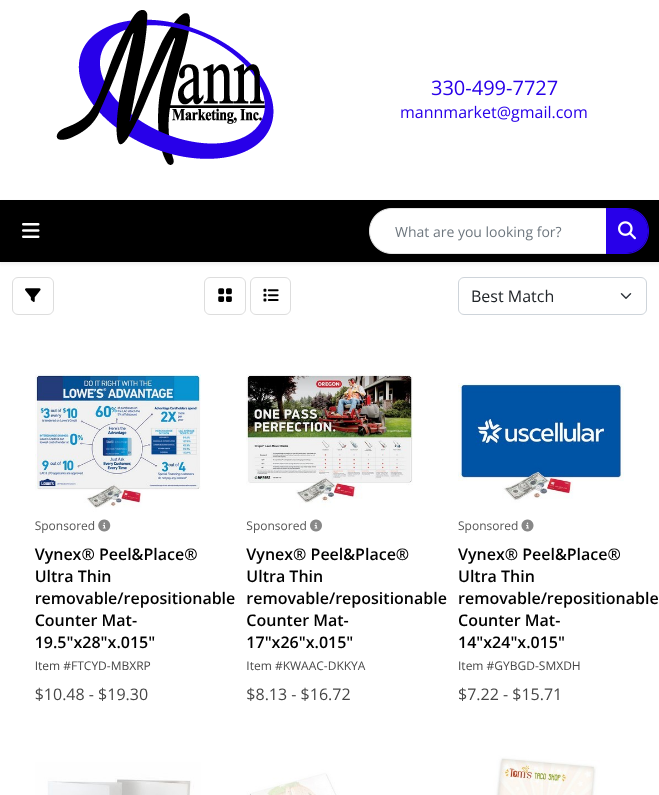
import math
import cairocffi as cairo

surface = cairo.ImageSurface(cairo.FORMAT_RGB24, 659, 795)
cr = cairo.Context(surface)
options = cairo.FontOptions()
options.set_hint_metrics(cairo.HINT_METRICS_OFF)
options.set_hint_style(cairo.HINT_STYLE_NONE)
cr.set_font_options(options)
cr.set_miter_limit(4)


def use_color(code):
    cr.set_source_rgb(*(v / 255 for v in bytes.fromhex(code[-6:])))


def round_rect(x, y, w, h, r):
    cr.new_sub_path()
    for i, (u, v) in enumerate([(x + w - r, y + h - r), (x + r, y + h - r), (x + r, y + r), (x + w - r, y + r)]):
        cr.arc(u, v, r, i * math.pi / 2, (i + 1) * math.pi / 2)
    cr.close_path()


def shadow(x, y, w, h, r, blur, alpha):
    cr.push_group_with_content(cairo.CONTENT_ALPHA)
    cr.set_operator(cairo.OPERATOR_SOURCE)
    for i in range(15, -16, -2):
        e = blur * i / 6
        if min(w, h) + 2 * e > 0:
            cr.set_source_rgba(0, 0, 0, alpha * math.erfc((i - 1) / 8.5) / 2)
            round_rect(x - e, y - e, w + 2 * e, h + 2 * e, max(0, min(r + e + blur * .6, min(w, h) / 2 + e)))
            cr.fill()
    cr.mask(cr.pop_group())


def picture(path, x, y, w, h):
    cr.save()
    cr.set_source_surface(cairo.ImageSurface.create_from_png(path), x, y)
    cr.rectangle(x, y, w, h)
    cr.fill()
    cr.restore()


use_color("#ffffff")
cr.paint()
picture("img1.png", 56, 10, 218, 155)
cr.select_font_face("Open Sans")
cr.set_font_size(20)
use_color("#2800e9")
cr.move_to(431, 95)
cr.show_text("330-499-7727")
cr.set_font_size(16)
cr.move_to(400, 118)
cr.show_text("mannmarket@gmail.com")
use_color("#000000")
shadow(0, 202, 659, 62, 0, 2, 0.07)
use_color("#000000")
cr.rectangle(0, 200, 659, 62)
cr.fill()
picture("img2.png", 22, 223, 18, 15)
use_color("#ffffff")
cr.new_path()
cr.move_to(392, 208.5)
cr.line_to(606.5, 208.5)
cr.line_to(606.5, 253.5)
cr.line_to(392, 253.5)
cr.curve_to(379.5, 253.5, 369.5, 243.5, 369.5, 231)
cr.curve_to(369.5, 218.5, 379.5, 208.5, 392, 208.5)
cr.close_path()
cr.fill_preserve()
use_color("#e4e4e4")
cr.set_line_width(1)
cr.stroke()
cr.set_font_size(14)
use_color("#6c757d")
cr.move_to(395, 237)
cr.show_text("What are you looking for?")
use_color("#2800e9")
cr.new_path()
cr.move_to(606, 209)
cr.line_to(626, 209)
cr.curve_to(638, 209, 648, 219, 648, 231)
cr.curve_to(648, 243, 638, 253, 626, 253)
cr.line_to(606, 253)
cr.close_path()
cr.fill()
cr.set_fill_rule(cairo.FILL_RULE_EVEN_ODD)
cr.new_path()
cr.move_to(606, 208)
cr.line_to(626, 208)
cr.curve_to(639, 208, 649, 218, 649, 231)
cr.curve_to(649, 244, 639, 254, 626, 254)
cr.line_to(606, 254)
cr.close_path()
cr.move_to(606, 209)
cr.line_to(626, 209)
cr.curve_to(638, 209, 648, 219, 648, 231)
cr.curve_to(648, 243, 638, 253, 626, 253)
cr.line_to(606, 253)
cr.close_path()
cr.fill()
picture("img3.png", 618, 221, 18, 19)
picture("img4.png", 12, 277, 646, 518)
surface.write_to_png("result.png")
